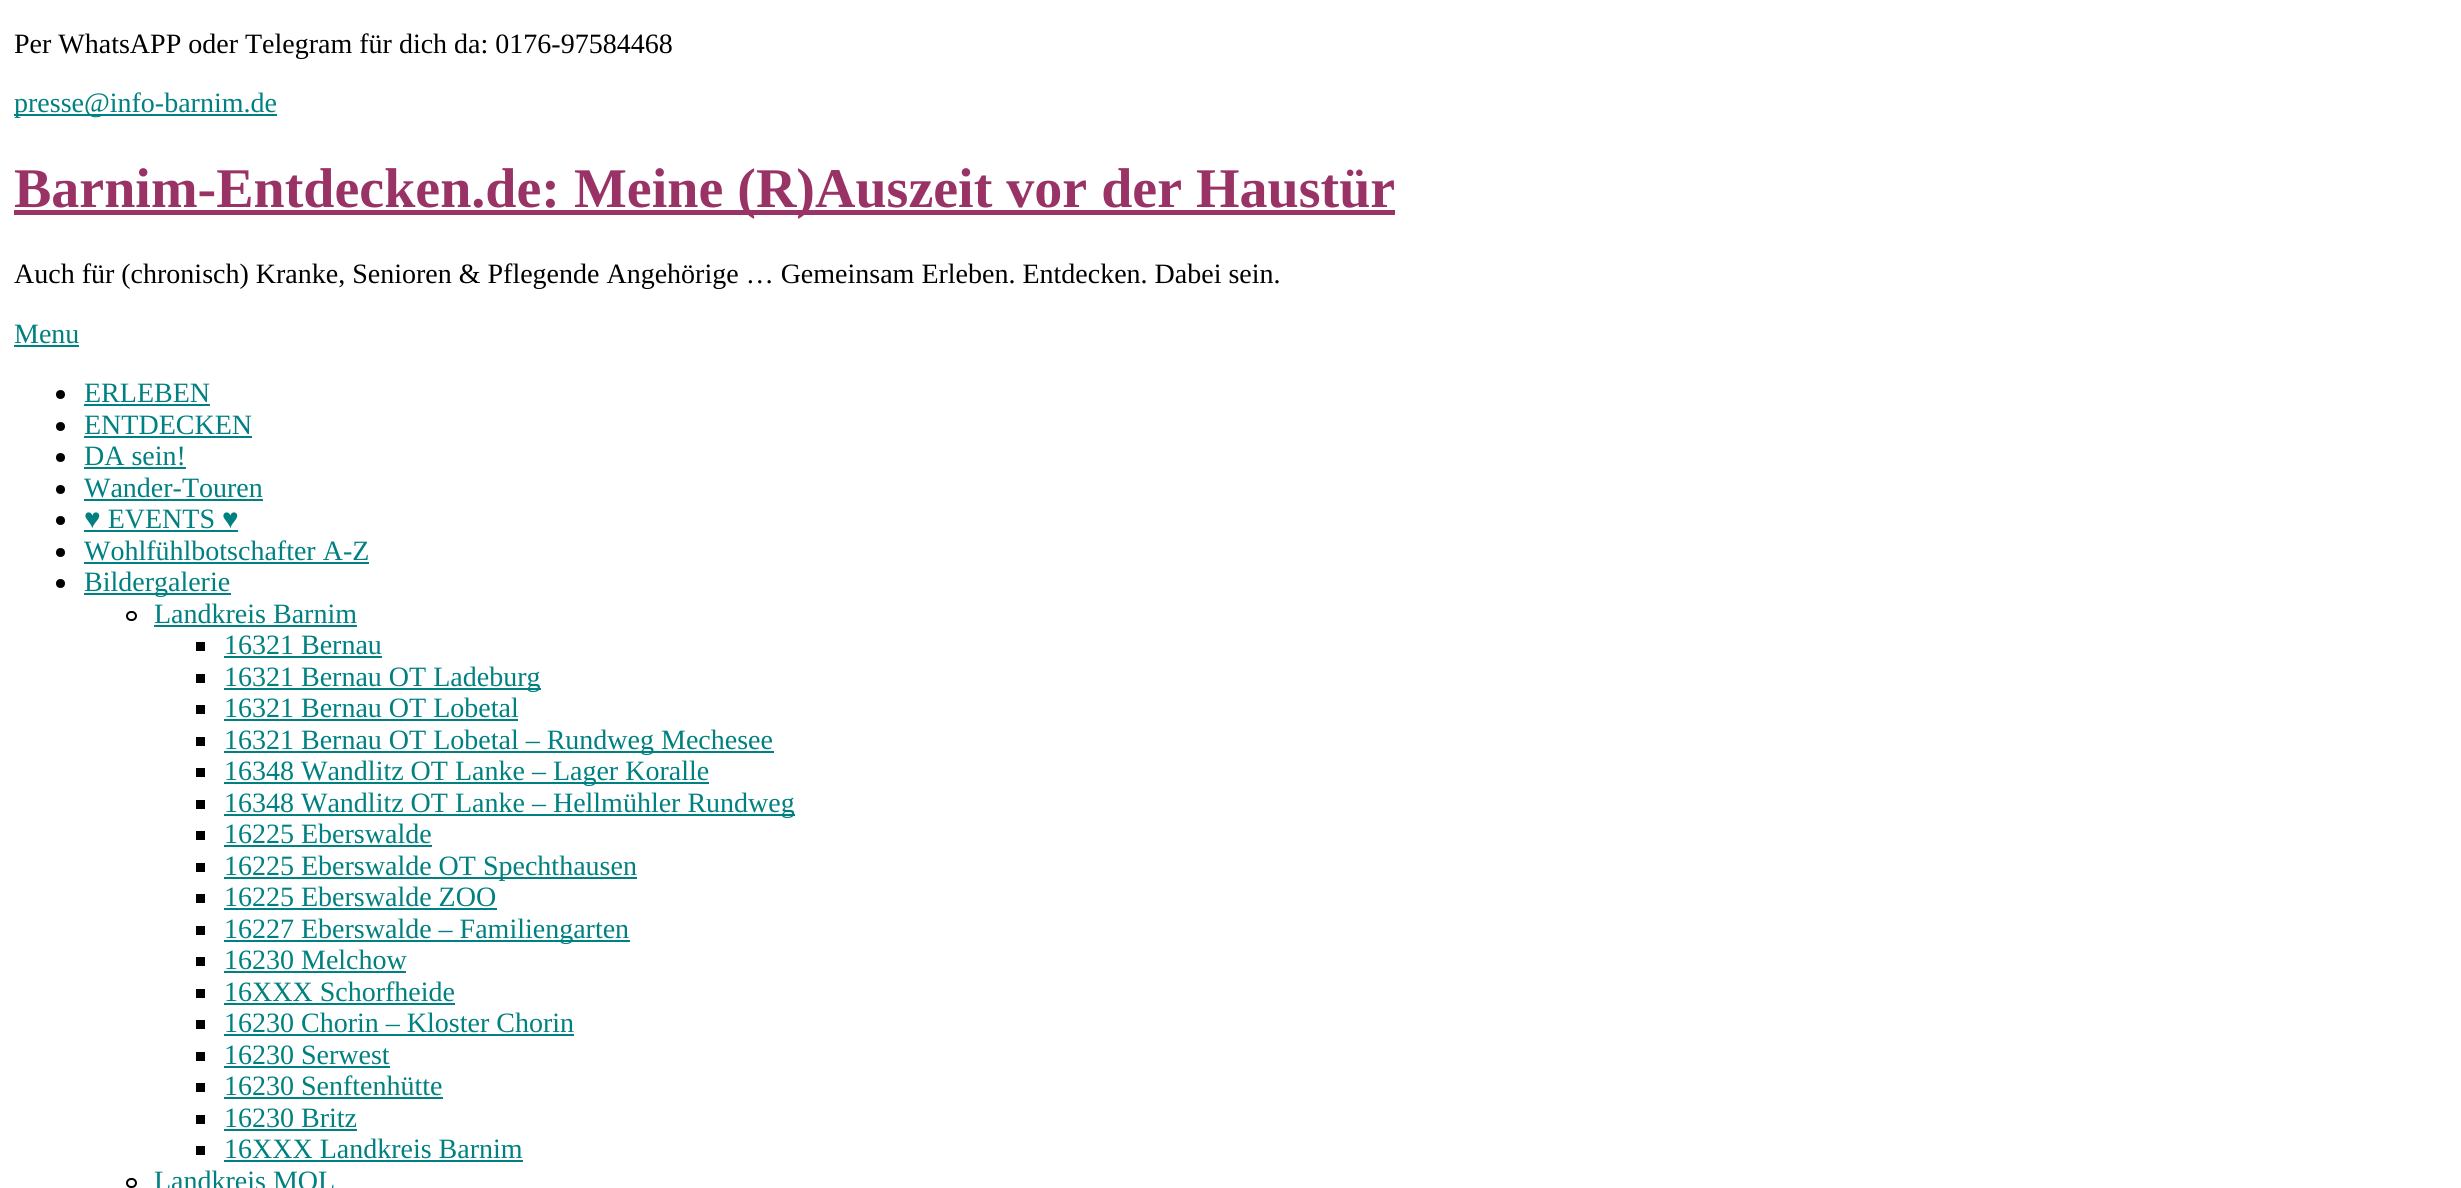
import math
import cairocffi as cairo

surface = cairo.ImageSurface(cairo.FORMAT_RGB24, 2461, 1188)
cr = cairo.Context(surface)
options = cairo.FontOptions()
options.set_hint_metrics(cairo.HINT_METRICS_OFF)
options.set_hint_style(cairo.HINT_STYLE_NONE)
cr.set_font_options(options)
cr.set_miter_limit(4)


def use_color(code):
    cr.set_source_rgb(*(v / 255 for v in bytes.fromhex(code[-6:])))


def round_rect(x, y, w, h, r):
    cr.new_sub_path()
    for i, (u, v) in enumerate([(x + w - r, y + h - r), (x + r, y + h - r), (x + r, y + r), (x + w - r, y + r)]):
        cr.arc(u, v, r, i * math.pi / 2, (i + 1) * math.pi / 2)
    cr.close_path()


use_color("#ffffff")
cr.paint()
cr.select_font_face("Liberation Serif")
cr.set_font_size(28)
use_color("#000000")
cr.move_to(14, 53)
cr.show_text("Per WhatsAPP oder Telegram für dich da: 0176-97584468")
use_color("#008080")
cr.rectangle(14, 114, 263, 2)
cr.fill()
cr.move_to(14, 112)
cr.show_text("presse@info-barnim.de")
use_color("#993366")
cr.rectangle(14, 210, 1381, 5)
cr.fill()
cr.select_font_face("Liberation Serif", cairo.FONT_SLANT_NORMAL, cairo.FONT_WEIGHT_BOLD)
cr.set_font_size(56)
cr.move_to(14, 207)
cr.show_text("Barnim-Entdecken.de: Meine (R)Auszeit vor der Haustür")
cr.select_font_face("Liberation Serif")
cr.set_font_size(28)
use_color("#000000")
cr.move_to(14, 283)
cr.show_text("Auch für (chronisch) Kranke, Senioren & Pflegende Angehörige … Gemeinsam Erleben. Entdecken. Dabei sein.")
use_color("#008080")
cr.move_to(14, 343)
cr.show_text("Menu")
cr.rectangle(14, 345, 65, 2)
cr.fill()
use_color("#000000")
cr.arc(60.5, 394.5, 4.5, 0, 2 * math.pi)
cr.fill()
use_color("#008080")
cr.move_to(84, 402)
cr.show_text("ERLEBEN")
cr.rectangle(84, 404, 126, 2)
cr.fill()
use_color("#000000")
cr.arc(60.5, 426.5, 4.5, 0, 2 * math.pi)
cr.fill()
use_color("#008080")
cr.move_to(84, 434)
cr.show_text("ENTDECKEN")
cr.rectangle(84, 436, 168, 2)
cr.fill()
use_color("#000000")
cr.arc(60.5, 457.5, 4.5, 0, 2 * math.pi)
cr.fill()
use_color("#008080")
cr.move_to(84, 465)
cr.show_text("DA sein!")
cr.rectangle(84, 467, 102, 2)
cr.fill()
use_color("#000000")
cr.arc(60.5, 489.5, 4.5, 0, 2 * math.pi)
cr.fill()
use_color("#008080")
cr.move_to(84, 497)
cr.show_text("Wander-Touren")
cr.rectangle(84, 499, 179, 2)
cr.fill()
use_color("#000000")
cr.arc(60.5, 520.5, 4.5, 0, 2 * math.pi)
cr.fill()
use_color("#008080")
cr.move_to(84, 528)
cr.show_text("♥ EVENTS ♥")
cr.rectangle(84, 530, 154, 2)
cr.fill()
use_color("#000000")
cr.arc(60.5, 552.5, 4.5, 0, 2 * math.pi)
cr.fill()
use_color("#008080")
cr.move_to(84, 560)
cr.show_text("Wohlfühlbotschafter A-Z")
cr.rectangle(84, 562, 285, 2)
cr.fill()
use_color("#000000")
cr.arc(60.5, 583.5, 4.5, 0, 2 * math.pi)
cr.fill()
use_color("#008080")
cr.rectangle(84, 593, 147, 2)
cr.fill()
cr.move_to(84, 591)
cr.show_text("Bildergalerie")
round_rect(127, 612, 9, 8, 4)
use_color("#000000")
cr.stroke()
use_color("#008080")
cr.move_to(154, 623)
cr.show_text("Landkreis Barnim")
cr.rectangle(154, 625, 203, 2)
cr.fill()
use_color("#000000")
cr.rectangle(196, 642, 9, 9)
cr.fill()
use_color("#008080")
cr.move_to(224, 654)
cr.show_text("16321 Bernau")
cr.rectangle(224, 656, 158, 2)
cr.fill()
use_color("#000000")
cr.rectangle(196, 674, 9, 9)
cr.fill()
use_color("#008080")
cr.rectangle(224, 688, 317, 2)
cr.fill()
cr.move_to(224, 686)
cr.show_text("16321 Bernau OT Ladeburg")
use_color("#000000")
cr.rectangle(196, 705, 9, 9)
cr.fill()
use_color("#008080")
cr.move_to(224, 717)
cr.show_text("16321 Bernau OT Lobetal")
cr.rectangle(224, 719, 294, 2)
cr.fill()
use_color("#000000")
cr.rectangle(196, 737, 9, 9)
cr.fill()
use_color("#008080")
cr.rectangle(224, 751, 550, 2)
cr.fill()
cr.move_to(224, 749)
cr.show_text("16321 Bernau OT Lobetal – Rundweg Mechesee")
use_color("#000000")
cr.rectangle(196, 768, 9, 9)
cr.fill()
use_color("#008080")
cr.rectangle(224, 782, 485, 2)
cr.fill()
cr.move_to(224, 780)
cr.show_text("16348 Wandlitz OT Lanke – Lager Koralle")
use_color("#000000")
cr.rectangle(196, 800, 9, 9)
cr.fill()
use_color("#008080")
cr.rectangle(224, 814, 571, 2)
cr.fill()
cr.move_to(224, 812)
cr.show_text("16348 Wandlitz OT Lanke – Hellmühler Rundweg")
use_color("#000000")
cr.rectangle(196, 831, 9, 9)
cr.fill()
use_color("#008080")
cr.move_to(224, 843)
cr.show_text("16225 Eberswalde")
cr.rectangle(224, 845, 208, 2)
cr.fill()
use_color("#000000")
cr.rectangle(196, 863, 9, 9)
cr.fill()
use_color("#008080")
cr.rectangle(224, 877, 413, 2)
cr.fill()
cr.move_to(224, 875)
cr.show_text("16225 Eberswalde OT Spechthausen")
use_color("#000000")
cr.rectangle(196, 894, 9, 9)
cr.fill()
use_color("#008080")
cr.move_to(224, 906)
cr.show_text("16225 Eberswalde ZOO")
cr.rectangle(224, 908, 273, 2)
cr.fill()
use_color("#000000")
cr.rectangle(196, 926, 9, 9)
cr.fill()
use_color("#008080")
cr.rectangle(224, 940, 406, 2)
cr.fill()
cr.move_to(224, 938)
cr.show_text("16227 Eberswalde – Familiengarten")
use_color("#000000")
cr.rectangle(196, 957, 9, 9)
cr.fill()
use_color("#008080")
cr.move_to(224, 969)
cr.show_text("16230 Melchow")
cr.rectangle(224, 971, 182, 2)
cr.fill()
use_color("#000000")
cr.rectangle(196, 989, 9, 9)
cr.fill()
use_color("#008080")
cr.move_to(224, 1001)
cr.show_text("16XXX Schorfheide")
cr.rectangle(224, 1003, 231, 2)
cr.fill()
use_color("#000000")
cr.rectangle(196, 1020, 9, 9)
cr.fill()
use_color("#008080")
cr.move_to(224, 1032)
cr.show_text("16230 Chorin – Kloster Chorin")
cr.rectangle(224, 1034, 350, 2)
cr.fill()
use_color("#000000")
cr.rectangle(196, 1052, 9, 9)
cr.fill()
use_color("#008080")
cr.move_to(224, 1064)
cr.show_text("16230 Serwest")
cr.rectangle(224, 1066, 166, 2)
cr.fill()
use_color("#000000")
cr.rectangle(196, 1083, 9, 9)
cr.fill()
use_color("#008080")
cr.move_to(224, 1095)
cr.show_text("16230 Senftenhütte")
cr.rectangle(224, 1097, 219, 2)
cr.fill()
use_color("#000000")
cr.rectangle(196, 1115, 9, 9)
cr.fill()
use_color("#008080")
cr.move_to(224, 1127)
cr.show_text("16230 Britz")
cr.rectangle(224, 1129, 133, 2)
cr.fill()
use_color("#000000")
cr.rectangle(196, 1146, 9, 9)
cr.fill()
use_color("#008080")
cr.move_to(224, 1158)
cr.show_text("16XXX Landkreis Barnim")
cr.rectangle(224, 1160, 299, 2)
cr.fill()
round_rect(127, 1179, 9, 8, 4)
use_color("#000000")
cr.stroke()
use_color("#008080")
cr.move_to(154, 1190)
cr.show_text("Landkreis MOL")
surface.write_to_png("result.png")
